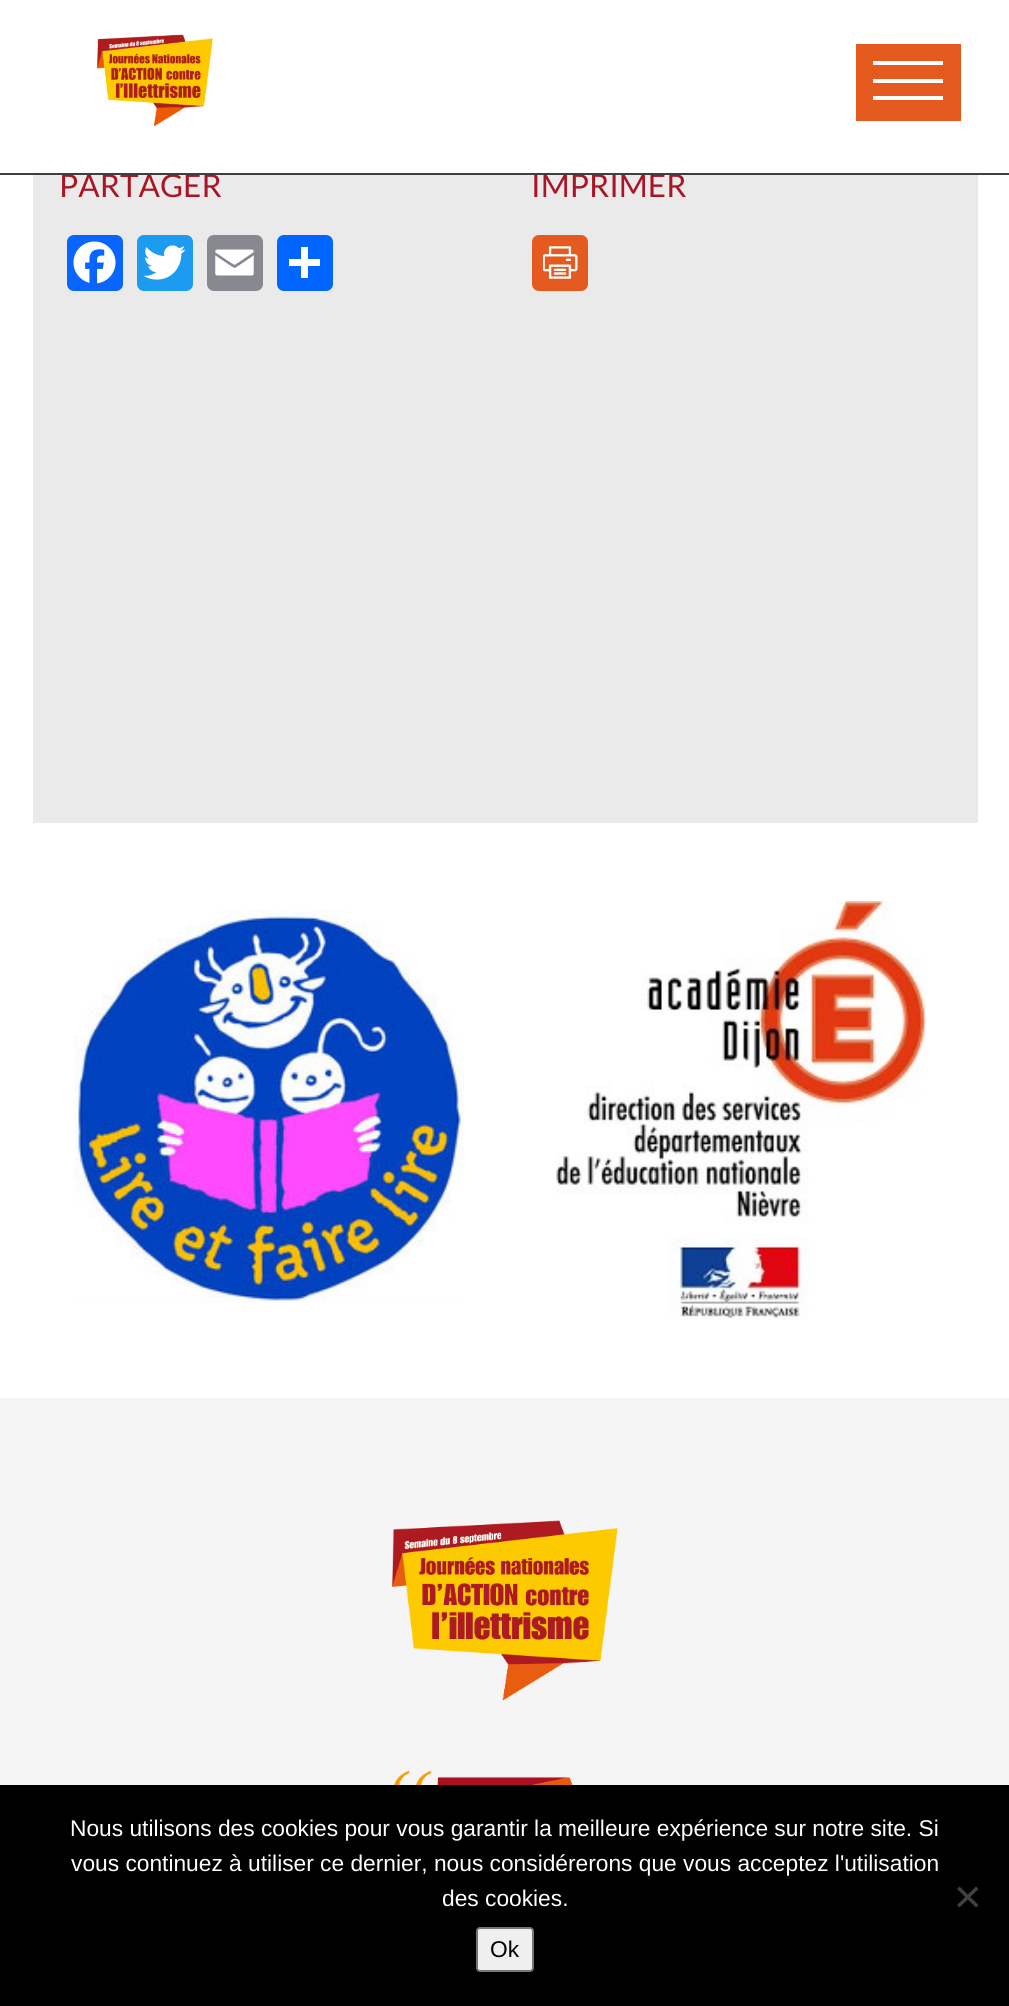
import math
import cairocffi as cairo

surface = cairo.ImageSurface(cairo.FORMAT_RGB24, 1009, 2006)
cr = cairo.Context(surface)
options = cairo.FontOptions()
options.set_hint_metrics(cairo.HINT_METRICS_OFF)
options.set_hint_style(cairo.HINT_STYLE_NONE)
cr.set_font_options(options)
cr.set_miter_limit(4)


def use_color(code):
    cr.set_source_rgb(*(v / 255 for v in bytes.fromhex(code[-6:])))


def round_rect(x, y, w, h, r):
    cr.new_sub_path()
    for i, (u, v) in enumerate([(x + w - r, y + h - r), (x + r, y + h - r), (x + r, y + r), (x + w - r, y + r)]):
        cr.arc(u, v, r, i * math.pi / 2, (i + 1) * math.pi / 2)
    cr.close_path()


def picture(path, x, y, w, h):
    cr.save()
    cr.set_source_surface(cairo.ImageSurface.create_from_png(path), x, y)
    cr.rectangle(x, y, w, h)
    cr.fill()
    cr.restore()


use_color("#ffffff")
cr.paint()
use_color("#eaeaea")
cr.rectangle(33, 175, 945, 648)
cr.fill()
cr.select_font_face("Lato")
cr.set_font_size(31.5)
use_color("#aa1526")
cr.move_to(59, 197)
cr.show_text("PARTAGER")
cr.move_to(531, 197)
cr.show_text("IMPRIMER")
use_color("#3f3f3f")
cr.rectangle(0, 173, 1009, 2)
cr.fill()
picture("img1.png", 97, 34, 116, 93)
use_color("#e55b1f")
cr.rectangle(856, 44, 105, 77)
cr.fill()
use_color("#ffffff")
cr.rectangle(873, 61, 70, 4)
cr.fill()
cr.rectangle(873, 79, 70, 4)
cr.fill()
cr.rectangle(873, 96, 70, 4)
cr.fill()
use_color("#0866ff")
round_rect(67, 235, 56, 56, 7)
cr.fill()
picture("img2.png", 73, 241, 43, 43)
use_color("#1d9bf0")
round_rect(137, 235, 56, 56, 7)
cr.fill()
picture("img3.png", 143, 245, 43, 35)
use_color("#888990")
round_rect(207, 235, 56, 56, 7)
cr.fill()
picture("img4.png", 215, 249, 39, 27)
use_color("#0166ff")
round_rect(277, 235, 56, 56, 7)
cr.fill()
use_color("#ffffff")
cr.rectangle(301, 247, 7, 31)
cr.fill()
cr.rectangle(289, 259, 31, 7)
cr.fill()
use_color("#e55b1f")
round_rect(532, 235, 56, 56, 7)
cr.fill()
picture("img5.png", 543, 246, 35, 33)
picture("img6.png", 73, 909, 391, 394)
picture("img7.png", 556, 901, 370, 418)
use_color("#f5f5f5")
cr.rectangle(0, 1398, 1009, 387)
cr.fill()
picture("img8.png", 392, 1520, 226, 181)
picture("img9.png", 394, 1770, 179, 15)
use_color("#000000")
cr.rectangle(0, 1785, 1009, 221)
cr.fill()
cr.select_font_face("Liberation Sans")
cr.set_font_size(22.75)
use_color("#ffffff")
cr.move_to(70, 1836)
cr.show_text("Nous utilisons des cookies pour vous garantir la meilleure expérience sur notre site. Si")
cr.move_to(71, 1871)
cr.show_text("vous continuez à utiliser ce dernier, nous considérerons que vous acceptez l'utilisation")
cr.move_to(442, 1906)
cr.show_text("des cookies.")
use_color("#404040")
cr.new_path()
cr.move_to(976, 1886.5)
cr.line_to(978.5, 1889)
cr.line_to(959.5, 1907.5)
cr.line_to(957, 1905)
cr.close_path()
cr.fill()
cr.new_path()
cr.move_to(957, 1889)
cr.line_to(959.5, 1886.5)
cr.line_to(978.5, 1905)
cr.line_to(976, 1907.5)
cr.close_path()
cr.fill()
use_color("#efefef")
round_rect(477, 1928, 56, 43, 3)
cr.fill_preserve()
use_color("#767676")
cr.stroke()
use_color("#000000")
cr.move_to(490, 1957)
cr.show_text("Ok")
surface.write_to_png("result.png")
